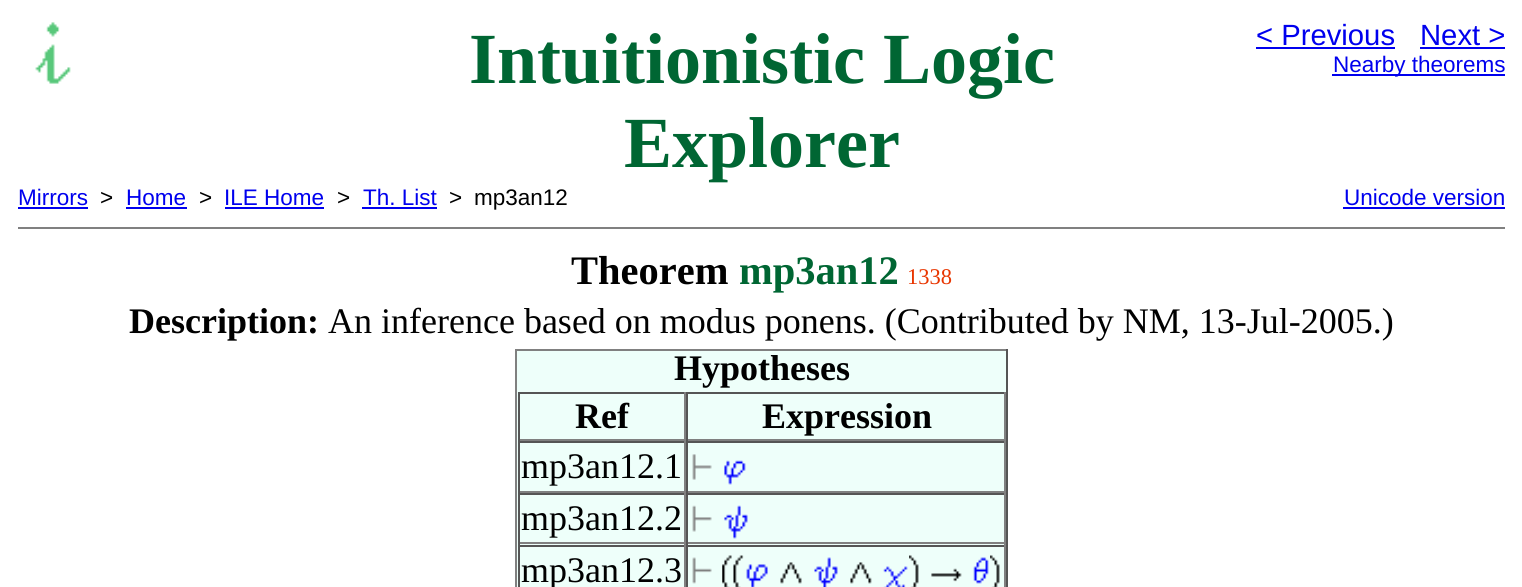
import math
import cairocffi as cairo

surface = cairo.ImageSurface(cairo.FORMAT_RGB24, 1522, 587)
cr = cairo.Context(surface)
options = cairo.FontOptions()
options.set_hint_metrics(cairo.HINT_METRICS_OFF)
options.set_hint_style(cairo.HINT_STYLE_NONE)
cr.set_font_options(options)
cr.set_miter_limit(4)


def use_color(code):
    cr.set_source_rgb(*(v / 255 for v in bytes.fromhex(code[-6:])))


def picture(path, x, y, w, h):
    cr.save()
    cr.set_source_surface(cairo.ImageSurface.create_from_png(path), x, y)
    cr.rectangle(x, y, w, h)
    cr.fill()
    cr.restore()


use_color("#ffffff")
cr.paint()
picture("img1.png", 35, 22, 36, 62)
cr.select_font_face("Liberation Serif", cairo.FONT_SLANT_NORMAL, cairo.FONT_WEIGHT_BOLD)
cr.set_font_size(72)
use_color("#006633")
cr.move_to(469, 83)
cr.show_text("Intuitionistic Logic")
cr.move_to(624, 167)
cr.show_text("Explorer")
cr.select_font_face("Liberation Sans")
cr.set_font_size(29.25)
use_color("#0000ee")
cr.move_to(1256, 45)
cr.show_text("< Previous")
cr.rectangle(1256, 47, 139, 2)
cr.fill()
cr.move_to(1420, 45)
cr.show_text("Next >")
cr.rectangle(1420, 47, 85, 2)
cr.fill()
cr.rectangle(1332, 74, 173, 2)
cr.fill()
cr.set_font_size(22.5)
cr.move_to(1333, 72)
cr.show_text("Nearby theorems")
cr.move_to(18, 205)
cr.show_text("Mirrors")
cr.rectangle(18, 207, 70, 2)
cr.fill()
use_color("#000000")
cr.move_to(100, 205)
cr.show_text(">")
use_color("#0000ee")
cr.move_to(126, 205)
cr.show_text("Home")
cr.rectangle(126, 207, 61, 2)
cr.fill()
use_color("#000000")
cr.move_to(199, 205)
cr.show_text(">")
use_color("#0000ee")
cr.move_to(224, 205)
cr.show_text("ILE Home")
cr.rectangle(225, 207, 99, 2)
cr.fill()
use_color("#000000")
cr.move_to(337, 205)
cr.show_text(">")
use_color("#0000ee")
cr.move_to(363, 205)
cr.show_text("Th. List")
cr.rectangle(362, 207, 75, 2)
cr.fill()
use_color("#000000")
cr.move_to(449, 205)
cr.show_text(">")
cr.move_to(474, 205)
cr.show_text("mp3an12")
use_color("#0000ee")
cr.move_to(1344, 205)
cr.show_text("Unicode version")
cr.rectangle(1343, 207, 162, 2)
cr.fill()
use_color("#808080")
cr.rectangle(18, 227, 1487, 2)
cr.fill()
cr.select_font_face("Liberation Serif", cairo.FONT_SLANT_NORMAL, cairo.FONT_WEIGHT_BOLD)
cr.set_font_size(40.5)
use_color("#000000")
cr.move_to(571, 284)
cr.show_text("Theorem")
use_color("#006633")
cr.move_to(739, 284)
cr.show_text("mp3an12")
cr.select_font_face("Liberation Serif")
cr.set_font_size(22.5)
use_color("#e83500")
cr.move_to(907, 284)
cr.show_text("1338")
cr.select_font_face("Liberation Serif", cairo.FONT_SLANT_NORMAL, cairo.FONT_WEIGHT_BOLD)
cr.set_font_size(36)
use_color("#000000")
cr.move_to(129, 333)
cr.show_text("Description:")
cr.select_font_face("Liberation Serif")
cr.move_to(328, 333)
cr.show_text("An inference based on modus ponens. (Contributed by NM, 13-Jul-2005.)")
use_color("#eefffa")
cr.rectangle(517, 351, 489, 236)
cr.fill()
use_color("#808080")
cr.rectangle(515, 349, 493, 2)
cr.fill()
use_color("#555555")
cr.rectangle(1006, 349, 2, 238)
cr.fill()
use_color("#808080")
cr.rectangle(515, 349, 2, 238)
cr.fill()
cr.select_font_face("Liberation Serif", cairo.FONT_SLANT_NORMAL, cairo.FONT_WEIGHT_BOLD)
use_color("#000000")
cr.move_to(674, 380)
cr.show_text("Hypotheses")
use_color("#555555")
cr.rectangle(518, 392, 488, 2)
cr.fill()
use_color("#808080")
cr.rectangle(684, 392, 2, 49)
cr.fill()
cr.rectangle(518, 439, 168, 2)
cr.fill()
use_color("#555555")
cr.rectangle(518, 392, 2, 49)
cr.fill()
use_color("#000000")
cr.move_to(575, 428)
cr.show_text("Ref")
use_color("#808080")
cr.rectangle(1004, 392, 2, 49)
cr.fill()
cr.rectangle(686, 439, 320, 2)
cr.fill()
use_color("#555555")
cr.rectangle(686, 392, 2, 49)
cr.fill()
use_color("#000000")
cr.move_to(762, 428)
cr.show_text("Expression")
use_color("#555555")
cr.rectangle(518, 441, 488, 2)
cr.fill()
use_color("#808080")
cr.rectangle(684, 441, 2, 52)
cr.fill()
cr.rectangle(518, 491, 168, 2)
cr.fill()
use_color("#555555")
cr.rectangle(518, 441, 2, 52)
cr.fill()
cr.select_font_face("Liberation Serif")
use_color("#000000")
cr.move_to(521, 478)
cr.show_text("mp3an12.1")
use_color("#808080")
cr.rectangle(1004, 441, 2, 52)
cr.fill()
cr.rectangle(686, 491, 320, 2)
cr.fill()
use_color("#555555")
cr.rectangle(686, 441, 2, 52)
cr.fill()
picture("img2.png", 692, 454, 20, 26)
picture("img3.png", 724, 460, 22, 25)
cr.rectangle(518, 493, 488, 2)
cr.fill()
use_color("#808080")
cr.rectangle(684, 493, 2, 52)
cr.fill()
cr.rectangle(518, 542, 168, 2)
cr.fill()
use_color("#555555")
cr.rectangle(518, 493, 2, 52)
cr.fill()
use_color("#000000")
cr.move_to(521, 530)
cr.show_text("mp3an12.2")
use_color("#808080")
cr.rectangle(1004, 493, 2, 52)
cr.fill()
cr.rectangle(686, 542, 320, 2)
cr.fill()
use_color("#555555")
cr.rectangle(686, 493, 2, 52)
cr.fill()
picture("img4.png", 692, 505, 20, 27)
picture("img5.png", 724, 505, 24, 34)
cr.rectangle(518, 545, 488, 2)
cr.fill()
use_color("#808080")
cr.rectangle(684, 545, 2, 42)
cr.fill()
use_color("#555555")
cr.rectangle(518, 545, 2, 42)
cr.fill()
use_color("#000000")
cr.move_to(521, 582)
cr.show_text("mp3an12.3")
use_color("#808080")
cr.rectangle(1004, 545, 2, 42)
cr.fill()
use_color("#555555")
cr.rectangle(686, 545, 2, 42)
cr.fill()
picture("img6.png", 692, 557, 20, 27)
picture("img7.png", 722, 555, 10, 32)
picture("img8.png", 733, 555, 11, 32)
picture("img9.png", 746, 564, 22, 23)
picture("img10.png", 780, 562, 22, 22)
picture("img11.png", 814, 557, 24, 30)
picture("img12.png", 850, 562, 22, 22)
picture("img13.png", 883, 566, 25, 21)
picture("img14.png", 909, 555, 10, 32)
picture("img15.png", 931, 568, 31, 14)
picture("img16.png", 973, 557, 16, 27)
picture("img14.png", 990, 555, 10, 32)
surface.write_to_png("result.png")
